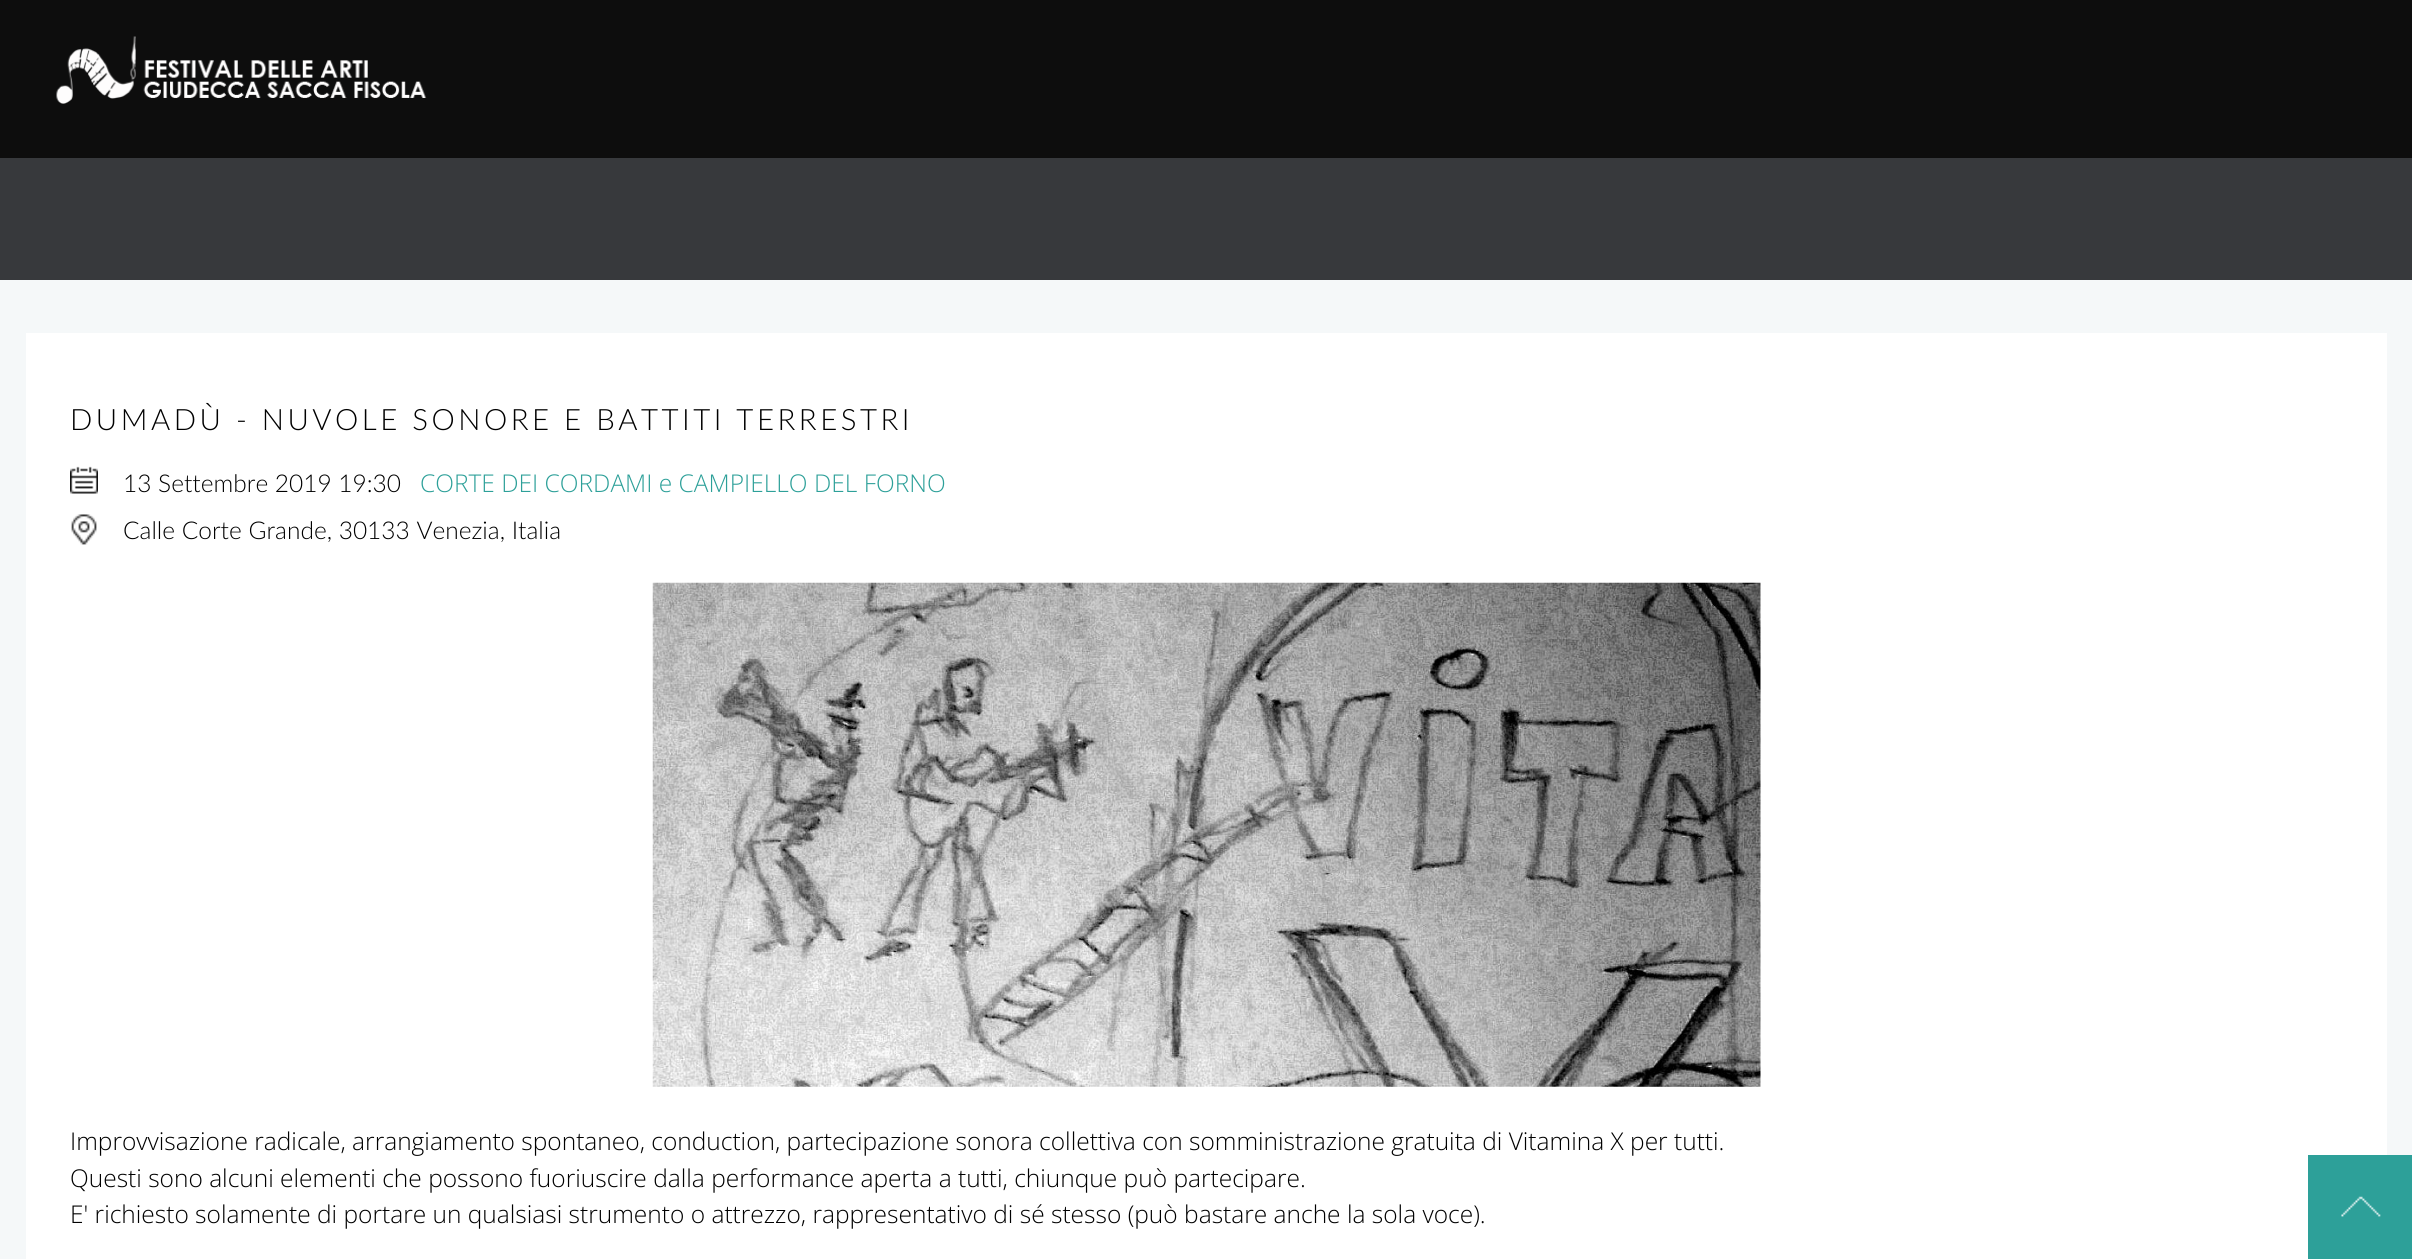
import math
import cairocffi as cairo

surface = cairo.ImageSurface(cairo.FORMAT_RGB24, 2412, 1259)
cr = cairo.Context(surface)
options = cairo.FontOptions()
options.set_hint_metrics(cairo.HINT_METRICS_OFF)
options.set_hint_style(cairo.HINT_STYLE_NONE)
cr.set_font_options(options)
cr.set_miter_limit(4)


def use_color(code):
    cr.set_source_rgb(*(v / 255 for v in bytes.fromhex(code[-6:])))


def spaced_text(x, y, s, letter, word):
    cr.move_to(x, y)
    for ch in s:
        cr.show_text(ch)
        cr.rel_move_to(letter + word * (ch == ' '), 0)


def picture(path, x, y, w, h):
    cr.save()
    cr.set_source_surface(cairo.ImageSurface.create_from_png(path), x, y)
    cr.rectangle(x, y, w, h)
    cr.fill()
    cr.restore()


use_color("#f5f8f9")
cr.paint()
use_color("#0d0d0d")
cr.rectangle(0, 0, 2412, 158)
cr.fill()
picture("img1.png", 56, 36, 371, 68)
use_color("#37393c")
cr.rectangle(0, 158, 2412, 122)
cr.fill()
use_color("#ffffff")
cr.rectangle(26, 333, 2361, 926)
cr.fill()
cr.select_font_face("Lato Light")
cr.set_font_size(29.4)
use_color("#000000")
spaced_text(70, 430, "DUMADÙ - NUVOLE SONORE E BATTITI TERRESTRI", 3.5, 0)
picture("img2.png", 70, 466, 28, 28)
cr.set_font_size(24.5)
cr.move_to(123, 492)
cr.show_text("13 Settembre 2019 19:30")
cr.select_font_face("Open Sans Light")
use_color("#2da099")
cr.move_to(420, 492)
cr.show_text("CORTE DEI CORDAMI e CAMPIELLO DEL FORNO")
picture("img3.png", 71, 514, 26, 31)
cr.select_font_face("Lato Light")
use_color("#000000")
cr.move_to(123, 539)
cr.show_text("Calle Corte Grande, 30133 Venezia, Italia")
picture("img4.png", 652, 582, 1109, 505)
cr.select_font_face("Open Sans Light")
cr.move_to(70, 1150)
cr.show_text("Improvvisazione radicale, arrangiamento spontaneo, conduction, partecipazione sonora collettiva con somministrazione gratuita di Vitamina X per tutti.")
cr.move_to(70, 1187)
cr.show_text("Questi sono alcuni elementi che possono fuoriuscire dalla performance aperta a tutti, chiunque può partecipare.")
cr.move_to(70, 1223)
cr.show_text("E' richiesto solamente di portare un qualsiasi strumento o attrezzo, rappresentativo di sé stesso (può bastare anche la sola voce).")
use_color("#2da099")
cr.rectangle(2308, 1155, 104, 104)
cr.fill()
picture("img5.png", 2341, 1196, 40, 21)
surface.write_to_png("result.png")
